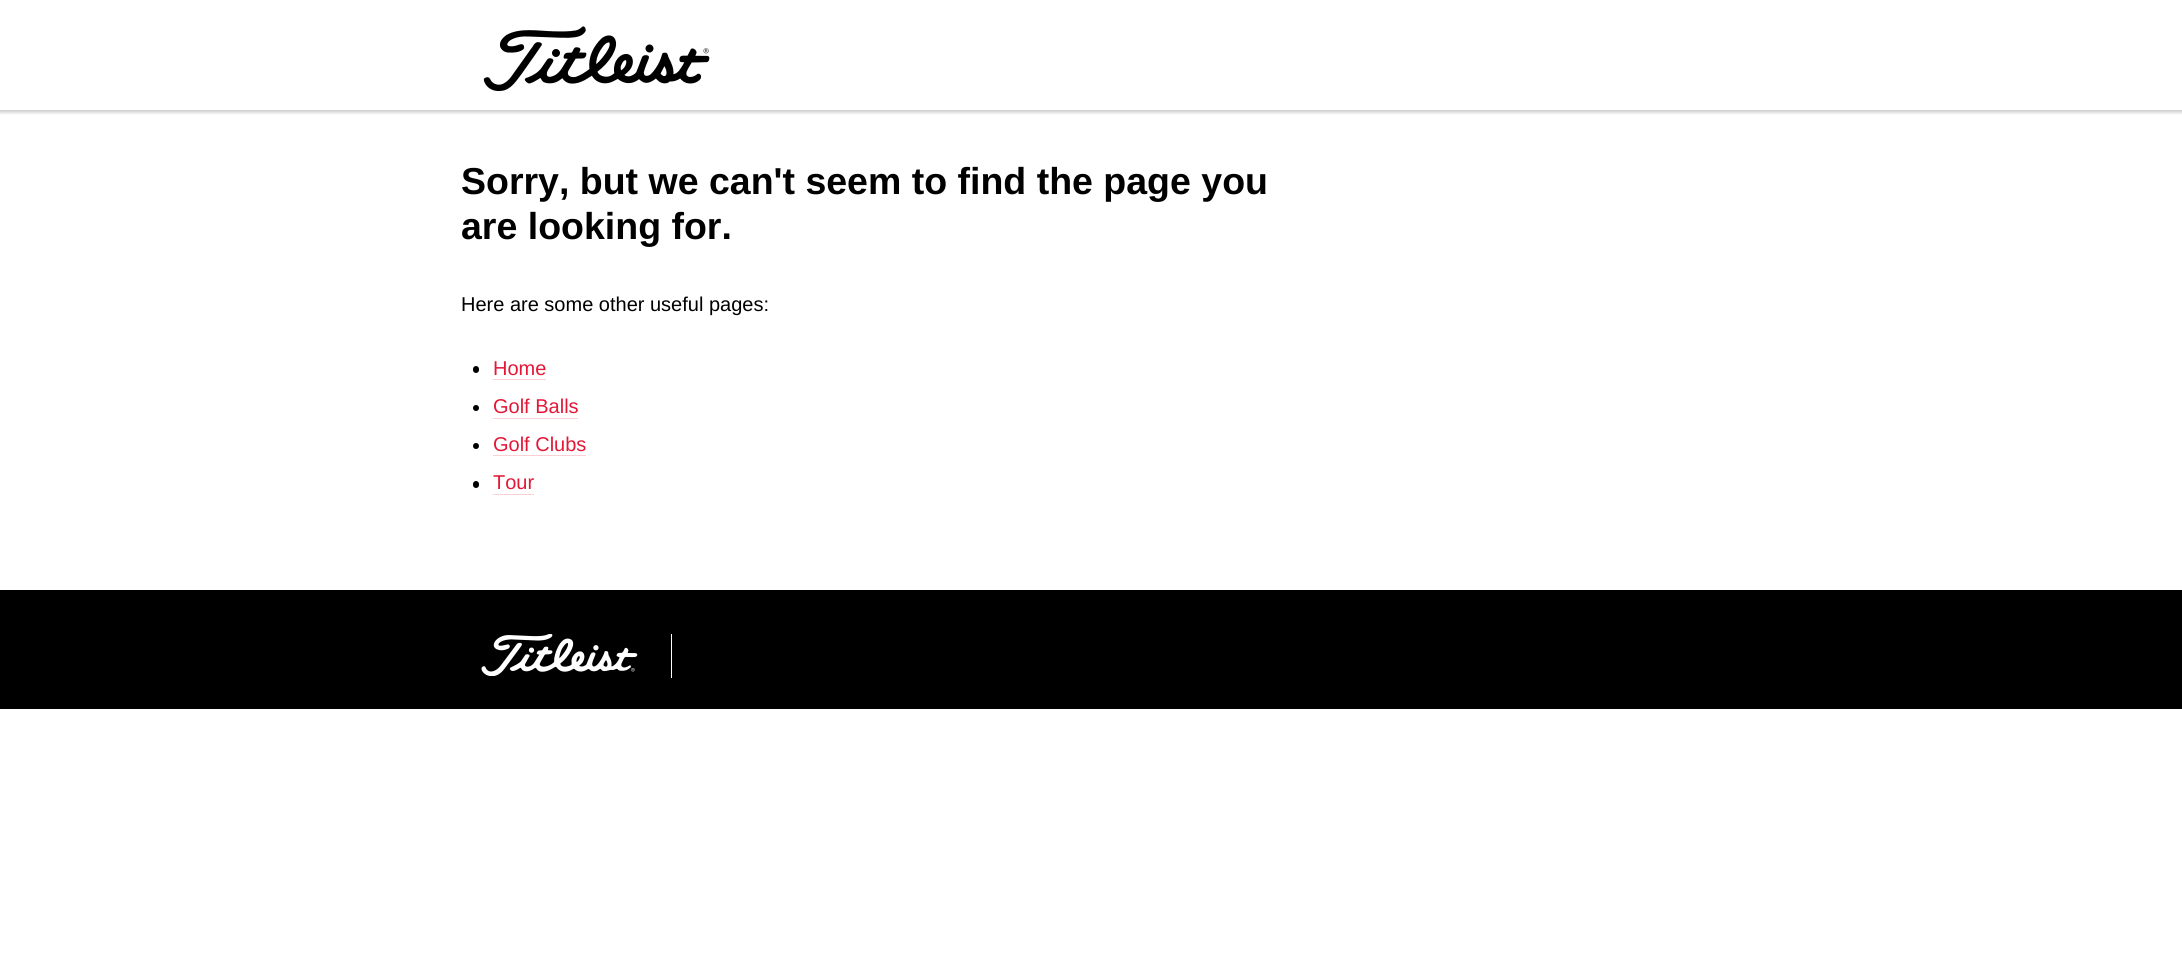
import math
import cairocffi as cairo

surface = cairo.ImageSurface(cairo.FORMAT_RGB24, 2182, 975)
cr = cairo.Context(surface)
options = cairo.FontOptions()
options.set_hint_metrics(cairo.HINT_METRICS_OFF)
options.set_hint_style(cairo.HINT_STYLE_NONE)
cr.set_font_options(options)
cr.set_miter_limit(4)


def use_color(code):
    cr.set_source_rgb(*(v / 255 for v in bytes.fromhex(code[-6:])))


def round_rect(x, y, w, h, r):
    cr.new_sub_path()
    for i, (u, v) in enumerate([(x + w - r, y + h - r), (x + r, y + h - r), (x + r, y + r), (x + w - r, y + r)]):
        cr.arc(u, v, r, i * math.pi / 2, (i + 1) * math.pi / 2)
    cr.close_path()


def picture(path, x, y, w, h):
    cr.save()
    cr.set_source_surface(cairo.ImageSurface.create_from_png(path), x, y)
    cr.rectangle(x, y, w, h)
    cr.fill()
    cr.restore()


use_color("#ffffff")
cr.paint()
picture("img1.png", 483, 26, 227, 66)
gradient = cairo.LinearGradient(1091, 110, 1091, 115)
gradient.add_color_stop_rgba(0, 0.8, 0.8, 0.8, 1)
gradient.add_color_stop_rgba(1, 1, 1, 1, 1)
cr.set_source(gradient)
cr.rectangle(0, 110, 2182, 5)
cr.fill()
cr.select_font_face("Liberation Sans", cairo.FONT_SLANT_NORMAL, cairo.FONT_WEIGHT_BOLD)
cr.set_font_size(37.5)
use_color("#000000")
cr.move_to(461, 194)
cr.show_text("Sorry, but we can't seem to find the page you")
cr.move_to(461, 239)
cr.show_text("are looking for.")
cr.select_font_face("Liberation Sans")
cr.set_font_size(20)
cr.move_to(461, 311)
cr.show_text("Here are some other useful pages:")
round_rect(473, 366, 6, 7, 3)
cr.fill()
use_color("#e31837")
cr.move_to(493, 375)
cr.show_text("Home")
use_color("#f9d1d7")
cr.rectangle(493, 379, 53, 1)
cr.fill()
use_color("#000000")
cr.arc(476, 408, 3, 0, 2 * math.pi)
cr.fill()
use_color("#e31837")
cr.move_to(493, 413)
cr.show_text("Golf Balls")
use_color("#f9d1d7")
cr.rectangle(493, 418, 85, 1)
cr.fill()
use_color("#000000")
cr.arc(476, 446, 3, 0, 2 * math.pi)
cr.fill()
use_color("#e31837")
cr.move_to(493, 451)
cr.show_text("Golf Clubs")
use_color("#f9d1d7")
cr.rectangle(493, 455, 93, 1)
cr.fill()
use_color("#000000")
round_rect(473, 481, 6, 7, 3)
cr.fill()
use_color("#e31837")
cr.move_to(493, 489)
cr.show_text("Tour")
use_color("#f9d1d7")
cr.rectangle(493, 494, 41, 1)
cr.fill()
use_color("#000000")
cr.rectangle(0, 590, 2182, 119)
cr.fill()
use_color("#ffffff")
cr.rectangle(671, 634, 1, 44)
cr.fill()
picture("img2.png", 481, 634, 157, 42)
surface.write_to_png("result.png")
